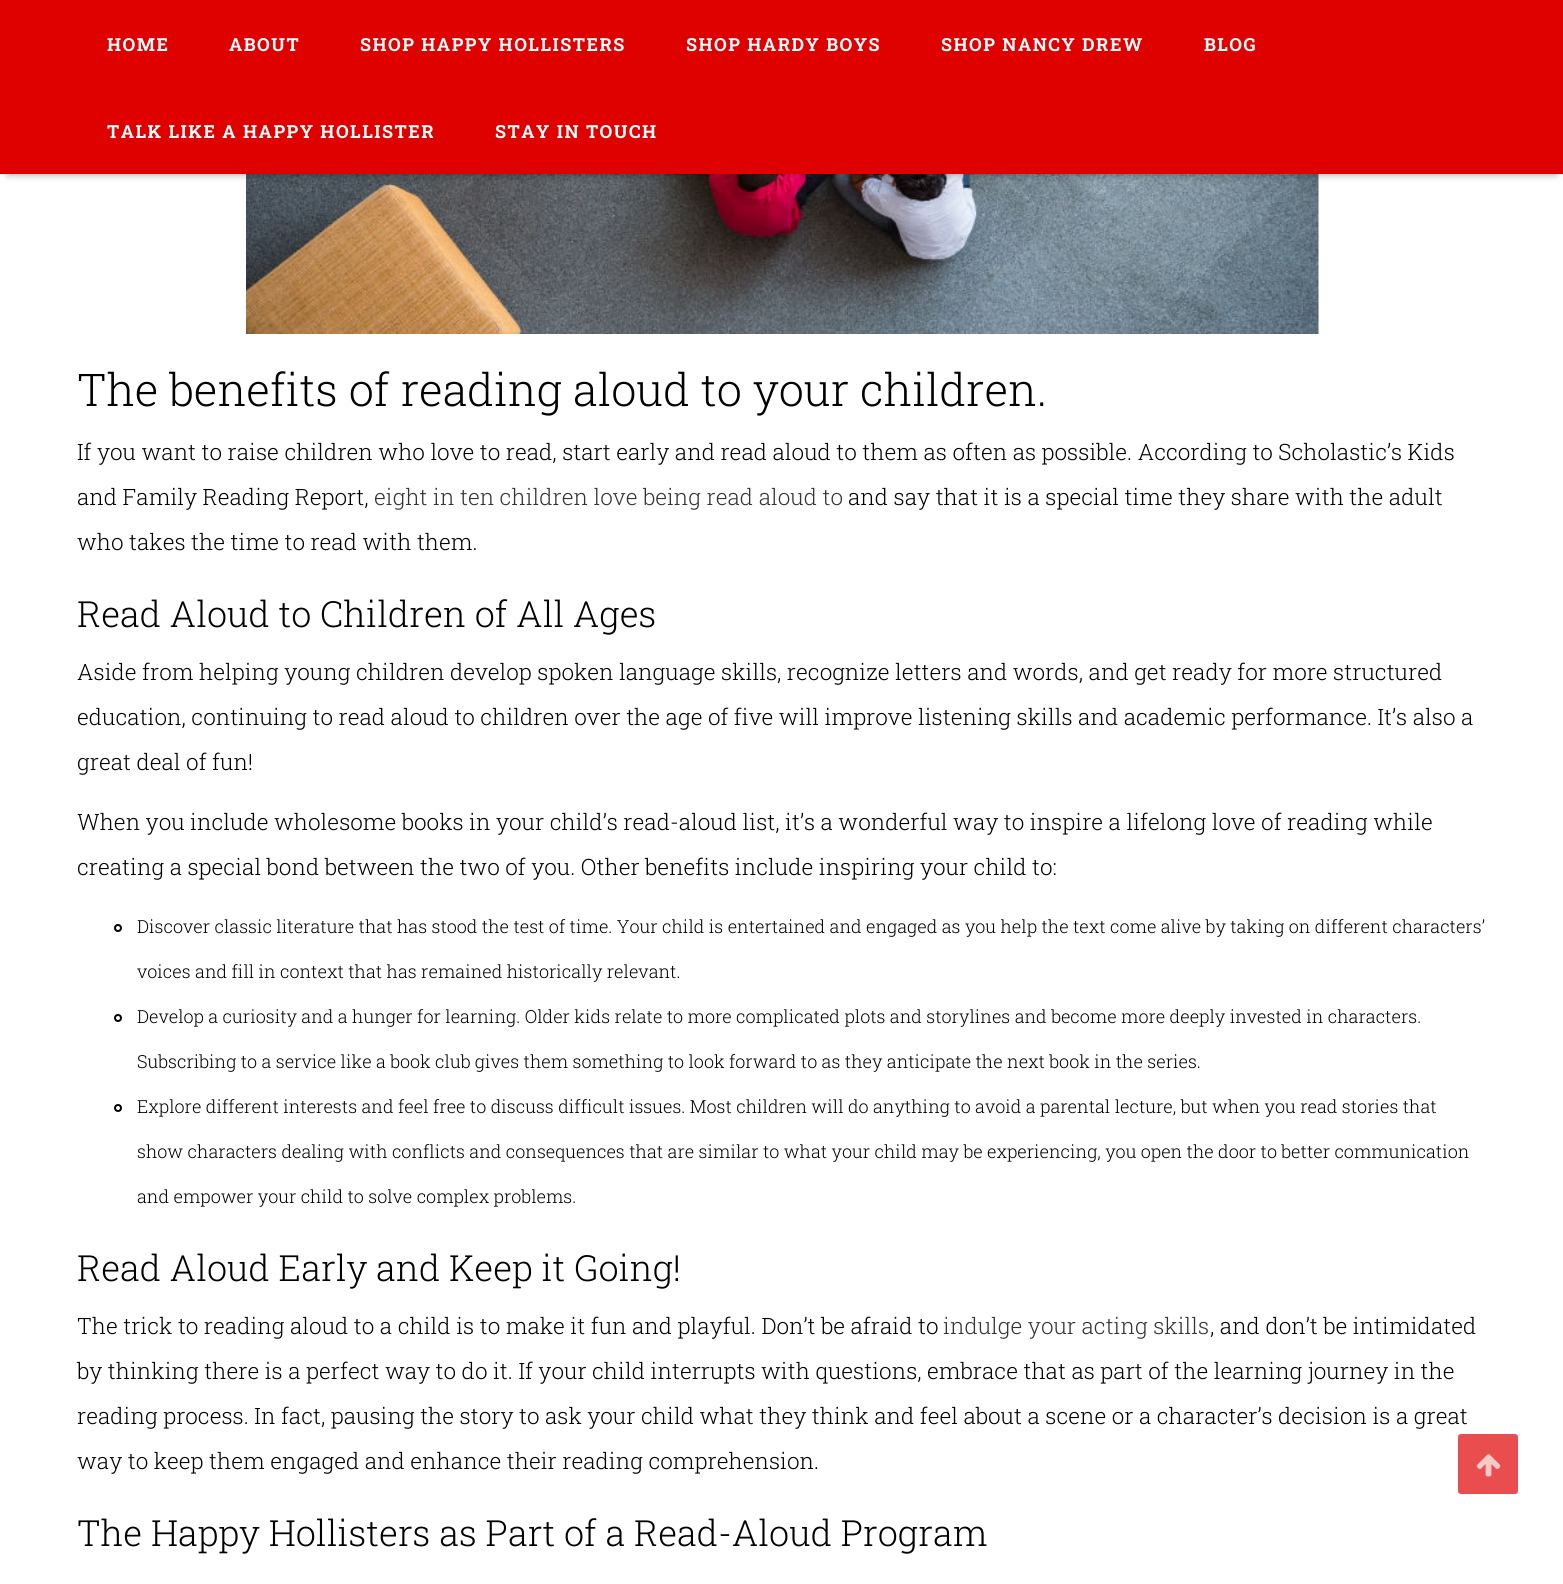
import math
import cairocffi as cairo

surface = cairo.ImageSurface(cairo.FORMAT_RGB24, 1563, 1584)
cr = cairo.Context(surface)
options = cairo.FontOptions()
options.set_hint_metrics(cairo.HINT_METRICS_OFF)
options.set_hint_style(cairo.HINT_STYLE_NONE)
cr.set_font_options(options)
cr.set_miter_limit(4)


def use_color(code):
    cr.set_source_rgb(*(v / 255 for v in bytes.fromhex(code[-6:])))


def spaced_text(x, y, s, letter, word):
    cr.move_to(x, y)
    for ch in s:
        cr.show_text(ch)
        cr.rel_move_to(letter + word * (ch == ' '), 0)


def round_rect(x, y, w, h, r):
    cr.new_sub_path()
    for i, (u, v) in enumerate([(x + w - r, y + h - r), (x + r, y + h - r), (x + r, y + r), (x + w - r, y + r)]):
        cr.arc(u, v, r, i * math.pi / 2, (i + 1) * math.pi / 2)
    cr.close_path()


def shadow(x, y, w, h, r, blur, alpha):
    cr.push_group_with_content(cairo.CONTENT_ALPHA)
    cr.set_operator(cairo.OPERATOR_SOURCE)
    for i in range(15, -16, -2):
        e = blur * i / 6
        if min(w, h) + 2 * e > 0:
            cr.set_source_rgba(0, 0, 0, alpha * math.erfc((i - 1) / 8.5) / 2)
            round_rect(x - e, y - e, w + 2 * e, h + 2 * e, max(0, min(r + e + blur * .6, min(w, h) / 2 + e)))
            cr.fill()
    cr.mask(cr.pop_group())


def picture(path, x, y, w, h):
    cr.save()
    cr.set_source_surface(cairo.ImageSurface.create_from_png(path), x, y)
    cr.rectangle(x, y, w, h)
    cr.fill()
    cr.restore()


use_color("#ffffff")
cr.paint()
picture("img1.png", 246, 174, 1073, 160)
use_color("#000000")
shadow(8, 15, 1548, 159, 0, 4, 0.4)
use_color("#df0000")
cr.rectangle(0, 0, 1563, 174)
cr.fill()
cr.select_font_face("Roboto Slab", cairo.FONT_SLANT_NORMAL, cairo.FONT_WEIGHT_BOLD)
cr.set_font_size(18)
use_color("#ffffff")
spaced_text(107, 51, "HOME", 1.5, 0)
spaced_text(229, 51, "ABOUT", 1.5, 0)
spaced_text(360, 51, "SHOP HAPPY HOLLISTERS", 1.5, 0)
spaced_text(686, 51, "SHOP HARDY BOYS", 1.5, 0)
spaced_text(941, 51, "SHOP NANCY DREW", 1.5, 0)
spaced_text(1204, 51, "BLOG", 1.5, 0)
spaced_text(107, 138, "TALK LIKE A HAPPY HOLLISTER", 1.5, 0)
spaced_text(495, 138, "STAY IN TOUCH", 1.5, 0)
cr.select_font_face("Roboto Slab Light")
cr.set_font_size(45)
use_color("#000000")
cr.move_to(77, 406)
cr.show_text("The benefits of reading aloud to your children.")
cr.set_font_size(22.5)
cr.move_to(77, 460)
cr.show_text("If you want to raise children who love to read, start early and read aloud to them as often as possible. According to Scholastic’s Kids")
cr.move_to(77, 505)
cr.show_text("and Family Reading Report,")
use_color("#333333")
cr.move_to(374, 505)
cr.show_text("eight in ten children love being read aloud to")
use_color("#000000")
cr.move_to(848, 505)
cr.show_text("and say that it is a special time they share with the adult")
cr.move_to(77, 550)
cr.show_text("who takes the time to read with them.")
cr.set_font_size(36)
cr.move_to(77, 627)
cr.show_text("Read Aloud to Children of All Ages")
cr.set_font_size(22.5)
cr.move_to(77, 680)
cr.show_text("Aside from helping young children develop spoken language skills, recognize letters and words, and get ready for more structured")
cr.move_to(77, 725)
cr.show_text("education, continuing to read aloud to children over the age of five will improve listening skills and academic performance. It’s also a")
cr.move_to(77, 770)
cr.show_text("great deal of fun!")
cr.move_to(77, 830)
cr.show_text("When you include wholesome books in your child’s read-aloud list, it’s a wonderful way to inspire a lifelong love of reading while")
cr.move_to(77, 875)
cr.show_text("creating a special bond between the two of you. Other benefits include inspiring your child to:")
cr.new_path()
cr.arc(118, 928, 3, 0, 2 * math.pi)
cr.stroke()
cr.set_font_size(18)
cr.move_to(137, 933)
cr.show_text("Discover classic literature that has stood the test of time. Your child is entertained and engaged as you help the text come alive by taking on different characters’")
cr.move_to(137, 978)
cr.show_text("voices and fill in context that has remained historically relevant.")
cr.new_path()
cr.arc(118, 1018, 3, 0, 2 * math.pi)
cr.stroke()
cr.move_to(137, 1023)
cr.show_text("Develop a curiosity and a hunger for learning. Older kids relate to more complicated plots and storylines and become more deeply invested in characters.")
cr.move_to(137, 1068)
cr.show_text("Subscribing to a service like a book club gives them something to look forward to as they anticipate the next book in the series.")
cr.new_path()
cr.arc(118, 1108, 3, 0, 2 * math.pi)
cr.stroke()
cr.move_to(137, 1113)
cr.show_text("Explore different interests and feel free to discuss difficult issues. Most children will do anything to avoid a parental lecture, but when you read stories that")
cr.move_to(137, 1158)
cr.show_text("show characters dealing with conflicts and consequences that are similar to what your child may be experiencing, you open the door to better communication")
cr.move_to(137, 1203)
cr.show_text("and empower your child to solve complex problems.")
cr.set_font_size(36)
cr.move_to(77, 1281)
cr.show_text("Read Aloud Early and Keep it Going!")
cr.set_font_size(22.5)
cr.move_to(77, 1334)
cr.show_text("The trick to reading aloud to a child is to make it fun and playful. Don’t be afraid to")
use_color("#333333")
cr.move_to(943, 1334)
cr.show_text("indulge your acting skills")
use_color("#000000")
cr.move_to(1210, 1334)
cr.show_text(", and don’t be intimidated")
cr.move_to(77, 1379)
cr.show_text("by thinking there is a perfect way to do it. If your child interrupts with questions, embrace that as part of the learning journey in the")
cr.move_to(77, 1424)
cr.show_text("reading process. In fact, pausing the story to ask your child what they think and feel about a scene or a character’s decision is a great")
cr.move_to(77, 1469)
cr.show_text("way to keep them engaged and enhance their reading comprehension.")
cr.set_font_size(36)
cr.move_to(77, 1546)
cr.show_text("The Happy Hollisters as Part of a Read-Aloud Program")
use_color("#e94d4d")
round_rect(1459.5, 1435.5, 57, 57, 1.5)
cr.fill_preserve()
cr.set_line_width(3)
cr.stroke()
picture("img2.png", 1476, 1454, 25, 23)
surface.write_to_png("result.png")
